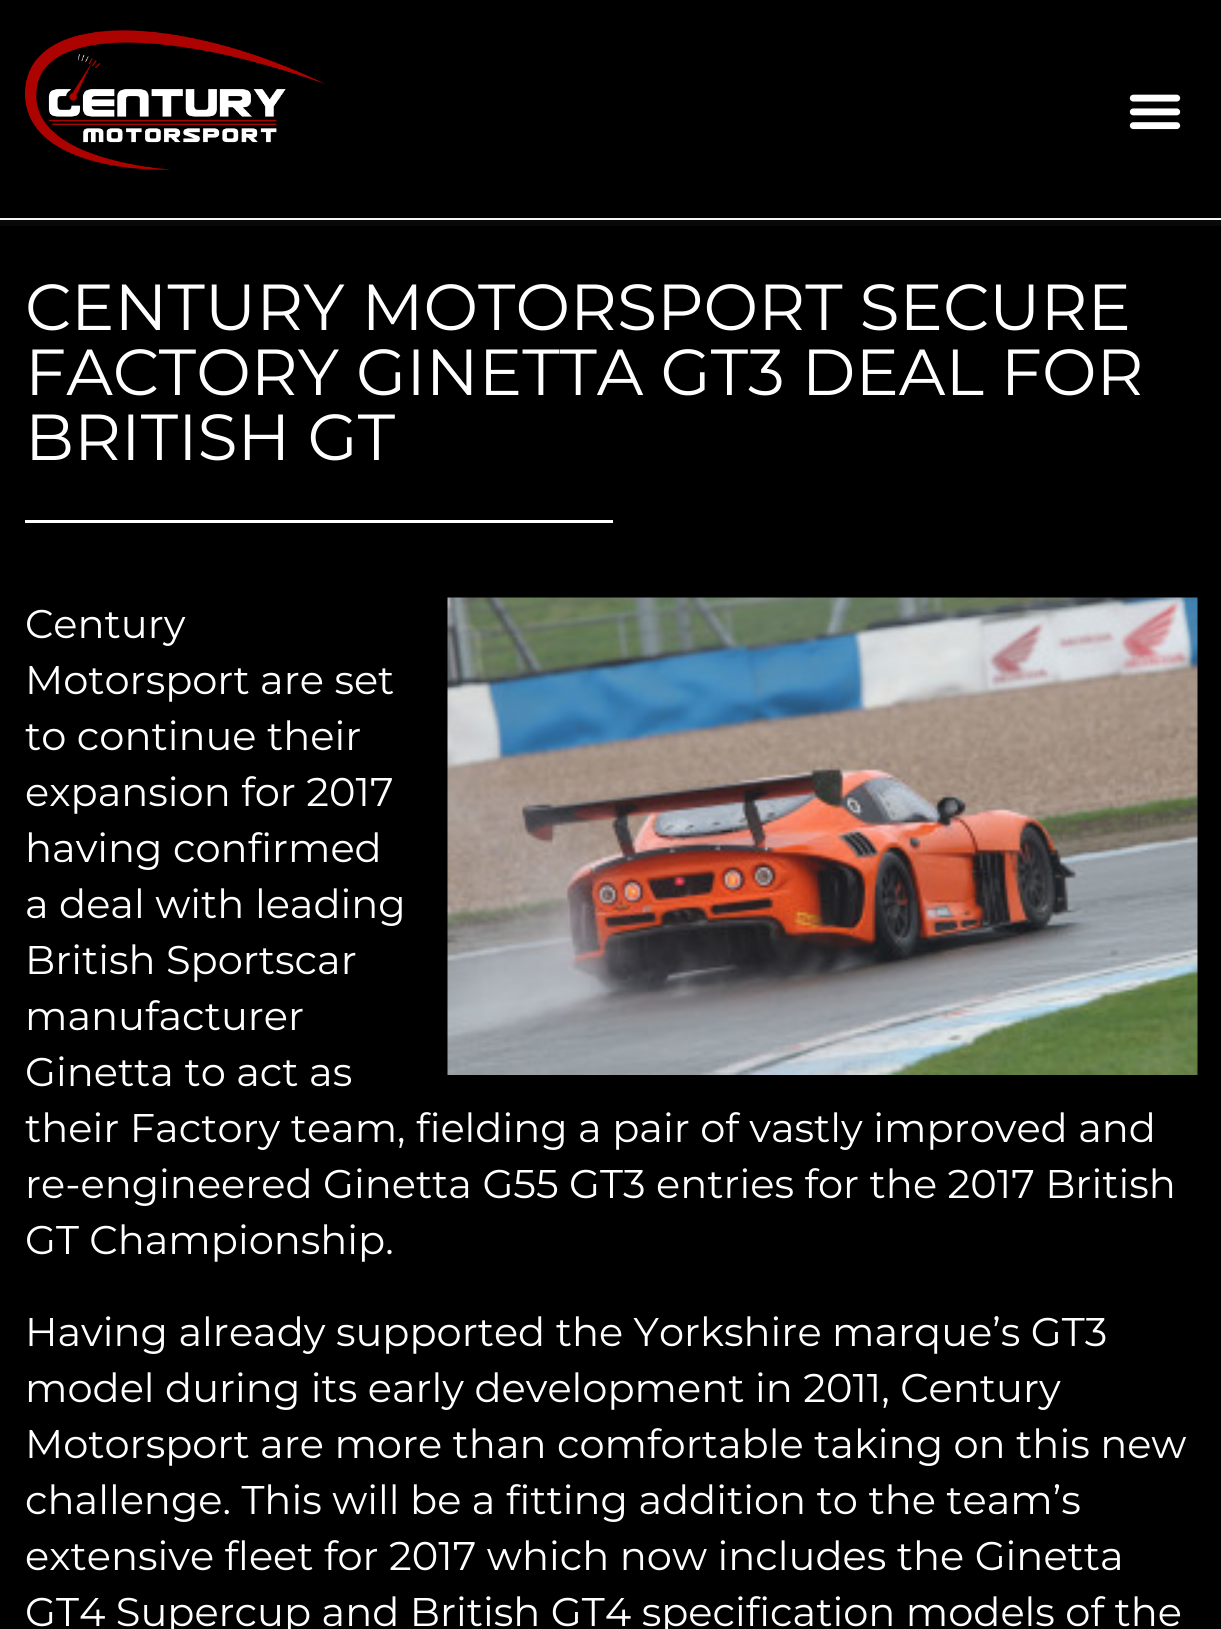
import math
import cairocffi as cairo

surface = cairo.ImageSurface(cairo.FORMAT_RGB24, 1221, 1629)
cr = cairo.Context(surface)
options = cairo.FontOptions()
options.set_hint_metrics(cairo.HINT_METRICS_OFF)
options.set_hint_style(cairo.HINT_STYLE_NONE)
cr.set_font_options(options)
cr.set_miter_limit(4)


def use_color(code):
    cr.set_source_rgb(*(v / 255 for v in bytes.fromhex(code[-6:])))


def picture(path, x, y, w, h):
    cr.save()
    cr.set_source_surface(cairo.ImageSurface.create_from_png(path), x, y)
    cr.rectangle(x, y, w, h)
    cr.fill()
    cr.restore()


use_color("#000000")
cr.paint()
use_color("#f5f5f5")
cr.rectangle(0, 218, 1221, 2)
cr.fill()
picture("img1.png", 25, 30, 300, 140)
picture("img2.png", 1129, 94, 52, 36)
use_color("#0a0909")
cr.rectangle(0, 220, 1221, 6)
cr.fill()
cr.select_font_face("Montserrat")
cr.set_font_size(65)
use_color("#ffffff")
cr.move_to(25, 330)
cr.show_text("CENTURY MOTORSPORT SECURE")
cr.move_to(25, 395)
cr.show_text("FACTORY GINETTA GT3 DEAL FOR")
cr.move_to(25, 460)
cr.show_text("BRITISH GT")
cr.rectangle(25, 520, 588, 3)
cr.fill()
cr.set_font_size(40)
cr.move_to(25, 638)
cr.show_text("Century")
picture("img3.png", 447, 597, 751, 478)
cr.move_to(25, 694)
cr.show_text("Motorsport are set")
cr.move_to(25, 750)
cr.show_text("to continue their")
cr.move_to(25, 806)
cr.show_text("expansion for 2017")
cr.move_to(25, 862)
cr.show_text("having confirmed")
cr.move_to(25, 918)
cr.show_text("a deal with leading")
cr.move_to(25, 974)
cr.show_text("British Sportscar")
cr.move_to(25, 1030)
cr.show_text("manufacturer")
cr.move_to(25, 1086)
cr.show_text("Ginetta to act as")
cr.move_to(25, 1142)
cr.show_text("their Factory team, fielding a pair of vastly improved and")
cr.move_to(25, 1198)
cr.show_text("re-engineered Ginetta G55 GT3 entries for the 2017 British")
cr.move_to(25, 1254)
cr.show_text("GT Championship.")
cr.move_to(25, 1346)
cr.show_text("Having already supported the Yorkshire marque’s GT3")
cr.move_to(25, 1402)
cr.show_text("model during its early development in 2011, Century")
cr.move_to(25, 1458)
cr.show_text("Motorsport are more than comfortable taking on this new")
cr.move_to(25, 1514)
cr.show_text("challenge. This will be a fitting addition to the team’s")
cr.move_to(25, 1570)
cr.show_text("extensive fleet for 2017 which now includes the Ginetta")
cr.move_to(25, 1626)
cr.show_text("GT4 Supercup and British GT4 specification models of the")
surface.write_to_png("result.png")
